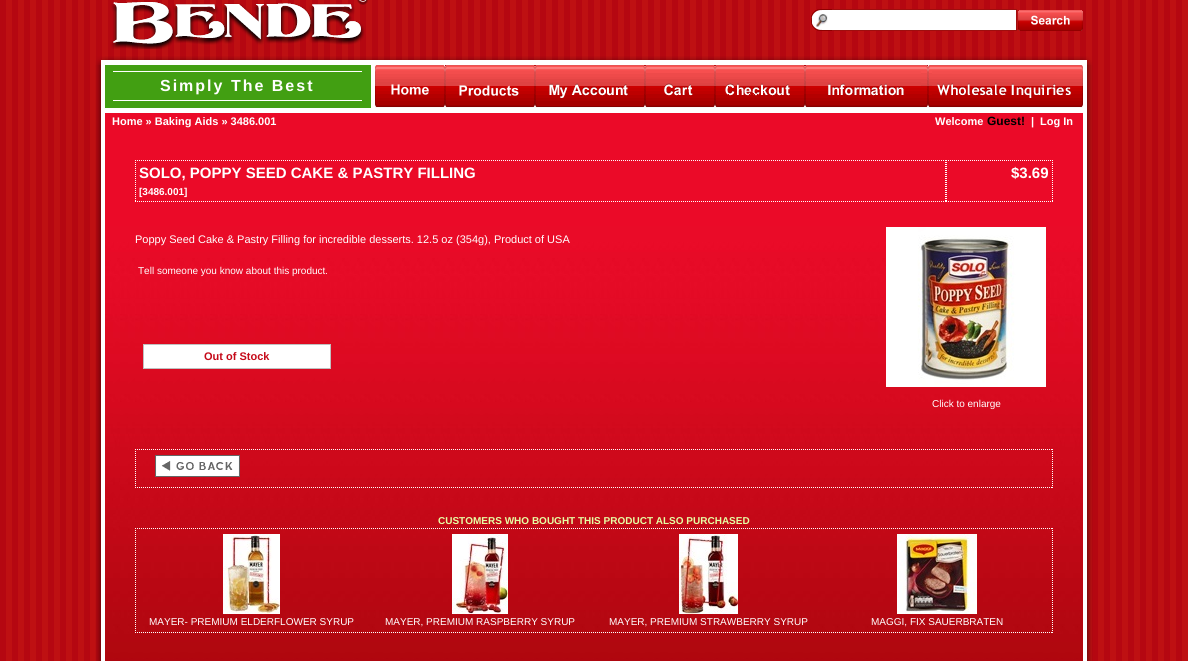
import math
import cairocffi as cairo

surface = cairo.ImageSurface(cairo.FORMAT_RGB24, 1188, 661)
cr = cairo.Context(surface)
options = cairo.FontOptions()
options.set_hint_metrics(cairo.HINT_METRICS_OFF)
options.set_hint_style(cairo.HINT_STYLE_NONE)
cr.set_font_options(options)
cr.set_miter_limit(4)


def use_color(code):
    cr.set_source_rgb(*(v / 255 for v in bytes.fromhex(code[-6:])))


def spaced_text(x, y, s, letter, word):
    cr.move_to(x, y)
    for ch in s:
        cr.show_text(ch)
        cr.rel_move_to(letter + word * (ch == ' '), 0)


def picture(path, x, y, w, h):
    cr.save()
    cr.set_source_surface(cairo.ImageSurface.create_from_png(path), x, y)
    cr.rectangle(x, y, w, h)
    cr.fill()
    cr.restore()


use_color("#ffffff")
cr.paint()
picture("img1.png", 0, 0, 1188, 661)
picture("img2.png", 110, 0, 258, 49)
picture("img3.png", 811, 9, 21, 22)
use_color("#ffffff")
cr.rectangle(832, 10, 184, 20)
cr.fill()
use_color("#9e0e0e")
cr.rectangle(832, 9, 185, 1)
cr.fill()
cr.rectangle(1016, 9, 1, 22)
cr.fill()
cr.rectangle(832, 30, 185, 1)
cr.fill()
picture("img4.png", 1018, 10, 65, 21)
picture("img5.png", 95, 56, 10, 9)
picture("img6.png", 105, 56, 978, 9)
picture("img7.png", 1083, 56, 10, 9)
picture("img8.png", 95, 65, 10, 43)
use_color("#429f12")
cr.rectangle(105, 65, 266, 43)
cr.fill()
use_color("#ffffff")
cr.rectangle(371, 65, 4, 43)
cr.fill()
cr.rectangle(113, 71, 249, 1)
cr.fill()
cr.rectangle(113, 100, 249, 1)
cr.fill()
cr.select_font_face("Liberation Sans", cairo.FONT_SLANT_NORMAL, cairo.FONT_WEIGHT_BOLD)
cr.set_font_size(16)
spaced_text(160, 91, "Simply The Best", 2, 0)
picture("img9.png", 375, 65, 70, 43)
picture("img10.png", 445, 65, 90, 43)
picture("img11.png", 535, 65, 110, 43)
picture("img12.png", 645, 65, 70, 43)
picture("img13.png", 715, 65, 90, 43)
picture("img14.png", 805, 65, 123, 43)
picture("img15.png", 928, 65, 155, 43)
picture("img16.png", 1083, 65, 10, 43)
picture("img17.png", 95, 108, 10, 5)
cr.rectangle(105, 108, 978, 5)
cr.fill()
picture("img18.png", 1083, 108, 10, 5)
picture("img19.png", 95, 113, 10, 16)
use_color("#eb0a28")
cr.rectangle(105, 113, 978, 17)
cr.fill()
cr.set_font_size(11)
use_color("#ffffff")
cr.move_to(112, 125)
cr.show_text("Home » Baking Aids » 3486.001")
cr.move_to(935, 125)
cr.show_text("Welcome")
cr.set_font_size(12)
use_color("#000000")
cr.move_to(987, 125)
cr.show_text("Guest!")
cr.set_font_size(11)
use_color("#ffffff")
cr.move_to(1031, 125)
cr.show_text("|")
cr.move_to(1040, 125)
cr.show_text("Log In")
picture("img20.png", 1083, 113, 10, 16)
picture("img21.png", 95, 129, 10, 1)
picture("img22.png", 1083, 129, 10, 1)
picture("img23.png", 95, 130, 10, 531)
picture("img24.png", 105, 130, 978, 531)
cr.new_path()
cr.move_to(135, 160.5)
cr.line_to(946, 160.5)
cr.set_line_width(1)
cr.set_dash([1, 1])
cr.stroke()
cr.new_path()
cr.move_to(945.5, 160)
cr.line_to(945.5, 202)
cr.stroke()
cr.new_path()
cr.move_to(135, 201.5)
cr.line_to(946, 201.5)
cr.stroke()
cr.new_path()
cr.move_to(135.5, 160)
cr.line_to(135.5, 202)
cr.stroke()
cr.set_font_size(15)
cr.move_to(139, 178)
cr.show_text("SOLO, POPPY SEED CAKE & PASTRY FILLING")
cr.set_font_size(10)
cr.move_to(139, 195)
cr.show_text("[3486.001]")
cr.new_path()
cr.move_to(946, 160.5)
cr.line_to(1053, 160.5)
cr.stroke()
cr.new_path()
cr.move_to(1052.5, 160)
cr.line_to(1052.5, 202)
cr.stroke()
cr.new_path()
cr.move_to(946, 201.5)
cr.line_to(1053, 201.5)
cr.stroke()
cr.new_path()
cr.move_to(946.5, 160)
cr.line_to(946.5, 202)
cr.stroke()
cr.set_font_size(15)
cr.move_to(1011, 178)
cr.show_text("$3.69")
cr.select_font_face("Liberation Sans")
cr.set_font_size(11)
cr.move_to(135, 243)
cr.show_text("Poppy Seed Cake & Pastry Filling for incredible desserts. 12.5 oz (354g), Product of USA")
cr.set_font_size(10)
cr.move_to(138, 274)
cr.show_text("Tell someone you know about this product.")
cr.rectangle(143.5, 344.5, 187, 24)
cr.fill_preserve()
use_color("#c0c0c0")
cr.set_dash([])
cr.stroke()
cr.select_font_face("Liberation Sans", cairo.FONT_SLANT_NORMAL, cairo.FONT_WEIGHT_BOLD)
cr.set_font_size(11)
use_color("#c50918")
cr.move_to(204, 360)
cr.show_text("Out of Stock")
picture("img25.png", 886, 227, 160, 160)
cr.select_font_face("Liberation Sans")
cr.set_font_size(10)
use_color("#ffffff")
cr.move_to(932, 407)
cr.show_text("Click to enlarge")
cr.new_path()
cr.move_to(135, 449.5)
cr.line_to(1053, 449.5)
cr.set_dash([1, 1])
cr.stroke()
cr.new_path()
cr.move_to(1052.5, 449)
cr.line_to(1052.5, 488)
cr.stroke()
cr.new_path()
cr.move_to(135, 487.5)
cr.line_to(1053, 487.5)
cr.stroke()
cr.new_path()
cr.move_to(135.5, 449)
cr.line_to(135.5, 488)
cr.stroke()
picture("img26.png", 155, 455, 85, 22)
cr.select_font_face("Liberation Sans", cairo.FONT_SLANT_NORMAL, cairo.FONT_WEIGHT_BOLD)
use_color("#e6ffa4")
cr.move_to(438, 524)
cr.show_text("CUSTOMERS WHO BOUGHT THIS PRODUCT ALSO PURCHASED")
cr.new_path()
cr.move_to(135, 528.5)
cr.line_to(1053, 528.5)
use_color("#ffffff")
cr.stroke()
cr.new_path()
cr.move_to(1052.5, 528)
cr.line_to(1052.5, 633)
cr.stroke()
cr.new_path()
cr.move_to(135, 632.5)
cr.line_to(1053, 632.5)
cr.stroke()
cr.new_path()
cr.move_to(135.5, 528)
cr.line_to(135.5, 633)
cr.stroke()
picture("img27.png", 223, 534, 57, 80)
cr.select_font_face("Liberation Sans")
cr.move_to(149, 625)
cr.show_text("MAYER- PREMIUM ELDERFLOWER SYRUP")
picture("img28.png", 452, 534, 56, 80)
cr.move_to(385, 625)
cr.show_text("MAYER, PREMIUM RASPBERRY SYRUP")
picture("img29.png", 679, 534, 59, 80)
cr.move_to(609, 625)
cr.show_text("MAYER, PREMIUM STRAWBERRY SYRUP")
picture("img30.png", 897, 534, 80, 80)
cr.move_to(871, 625)
cr.show_text("MAGGI, FIX SAUERBRATEN")
picture("img31.png", 1083, 130, 10, 531)
surface.write_to_png("result.png")
